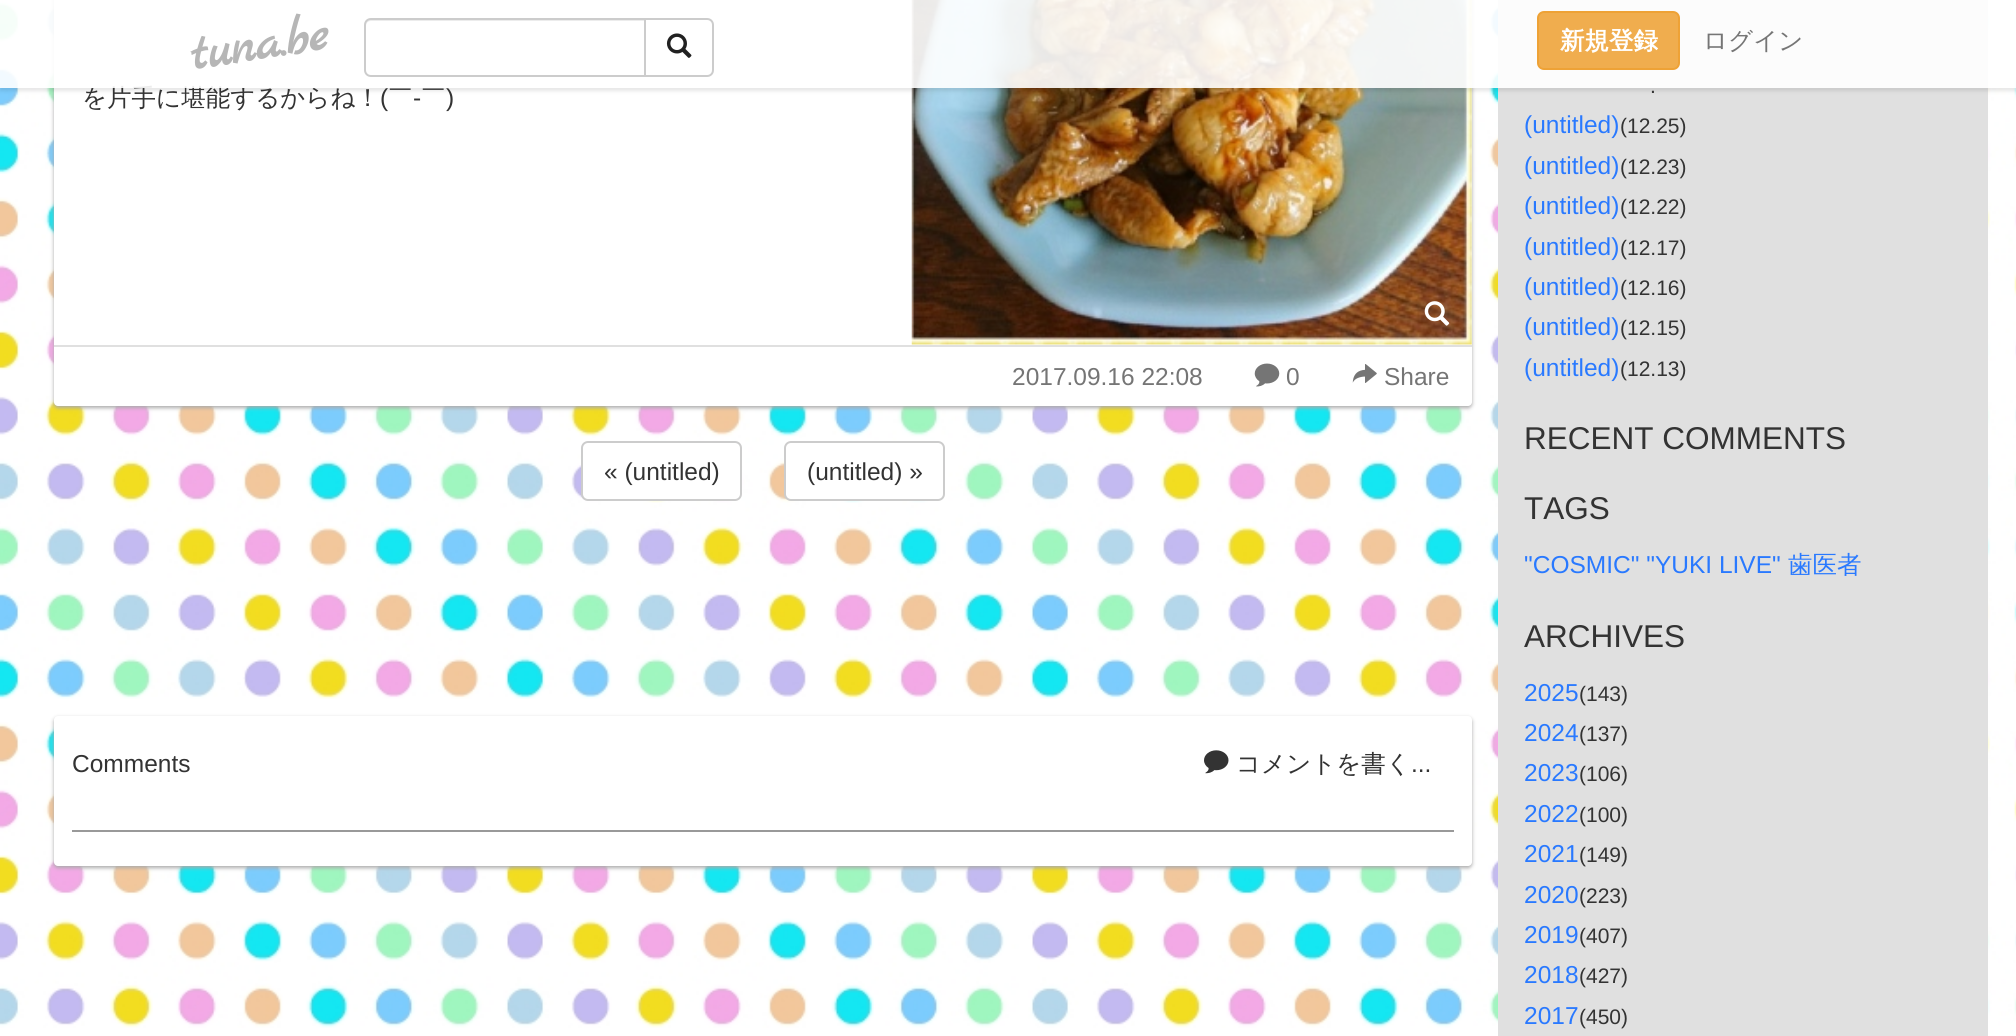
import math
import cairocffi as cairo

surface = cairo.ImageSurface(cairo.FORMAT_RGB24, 2016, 1036)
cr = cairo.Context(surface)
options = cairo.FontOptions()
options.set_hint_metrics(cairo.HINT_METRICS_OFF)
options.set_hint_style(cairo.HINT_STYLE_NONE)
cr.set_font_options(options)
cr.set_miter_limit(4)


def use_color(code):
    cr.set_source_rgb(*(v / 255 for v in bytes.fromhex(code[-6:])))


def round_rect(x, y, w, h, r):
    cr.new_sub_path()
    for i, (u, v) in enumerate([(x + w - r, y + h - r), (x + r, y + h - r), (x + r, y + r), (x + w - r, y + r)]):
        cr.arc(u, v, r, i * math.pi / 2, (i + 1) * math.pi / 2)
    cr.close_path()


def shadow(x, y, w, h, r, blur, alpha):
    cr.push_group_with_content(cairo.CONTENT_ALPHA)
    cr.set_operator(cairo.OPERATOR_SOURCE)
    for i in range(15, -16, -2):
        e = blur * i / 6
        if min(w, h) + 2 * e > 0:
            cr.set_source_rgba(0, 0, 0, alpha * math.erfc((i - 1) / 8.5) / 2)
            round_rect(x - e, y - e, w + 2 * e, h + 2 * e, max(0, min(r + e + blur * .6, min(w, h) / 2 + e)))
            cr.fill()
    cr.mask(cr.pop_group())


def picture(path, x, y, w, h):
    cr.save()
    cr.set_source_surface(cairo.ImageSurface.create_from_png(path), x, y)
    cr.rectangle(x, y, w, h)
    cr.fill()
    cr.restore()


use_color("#ffffff")
cr.paint()
picture("img1.png", 0, 1, 2016, 1027)
use_color("#aaaaaa")
shadow(54, -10, 1418, 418, 4, 2, 1)
use_color("#ffffff")
round_rect(54, -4, 1418, 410, 4)
cr.fill()
picture("img3.png", 911, 0, 561, 345)
use_color("#e0e0e0")
cr.rectangle(1498, 0, 490, 1036)
cr.fill()
cr.save()
cr.set_fill_rule(cairo.FILL_RULE_EVEN_ODD)
cr.new_path()
cr.move_to(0, 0)
cr.line_to(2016, 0)
cr.line_to(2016, 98)
cr.line_to(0, 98)
cr.close_path()
cr.move_to(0, 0)
cr.line_to(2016, 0)
cr.line_to(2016, 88)
cr.line_to(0, 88)
cr.close_path()
cr.clip()
use_color("#000000")
shadow(0, 4, 2016, 87, 0, 2, 0.1)
cr.restore()
cr.select_font_face("WenQuanYi Zen Hei Medium")
cr.set_font_size(24.5)
use_color("#333333")
cr.move_to(82, 106)
cr.show_text("を片手に堪能するからね！")
cr.set_source_rgba(1, 1, 1, 0.9)
cr.rectangle(0, 0, 2016, 88)
cr.fill()
cr.select_font_face("Marck Script", cairo.FONT_SLANT_NORMAL, cairo.FONT_WEIGHT_BOLD)
cr.set_font_size(52.5)
use_color("#b6b6b6")
cr.save()
cr.translate(193, 70)
cr.rotate(-9 * math.pi / 180)
cr.move_to(0, 0)
cr.show_text("tuna.be")
cr.restore()
use_color("#ececec")
cr.new_path()
cr.move_to(371, 21)
cr.line_to(644, 21)
cr.line_to(644, 19)
cr.line_to(370, 19)
cr.curve_to(366, 20, 366, 23, 366, 26)
cr.curve_to(366, 23, 368, 21, 371, 21)
cr.close_path()
cr.fill()
cr.new_path()
cr.move_to(371, 19)
cr.line_to(645, 19)
cr.line_to(645, 76)
cr.line_to(371, 76)
cr.curve_to(367.5, 76, 365, 73.5, 365, 70)
cr.line_to(365, 25)
cr.curve_to(365, 21.5, 367.5, 19, 371, 19)
cr.close_path()
use_color("#cccccc")
cr.stroke()
use_color("#ffffff")
cr.new_path()
cr.move_to(645, 19)
cr.line_to(707, 19)
cr.curve_to(710.5, 19, 713, 21.5, 713, 25)
cr.line_to(713, 70)
cr.curve_to(713, 73.5, 710.5, 76, 707, 76)
cr.line_to(645, 76)
cr.close_path()
cr.fill_preserve()
use_color("#cccccc")
cr.stroke()
picture("img2.png", 666, 33, 26, 25)
use_color("#f0ad4e")
round_rect(1538, 12, 141, 57, 6)
cr.fill_preserve()
use_color("#eea236")
cr.stroke()
cr.select_font_face("WenQuanYi Zen Hei", cairo.FONT_SLANT_NORMAL, cairo.FONT_WEIGHT_BOLD)
cr.set_font_size(24.5)
use_color("#ffffff")
cr.move_to(1560, 49)
cr.show_text("新規登録")
cr.select_font_face("WenQuanYi Zen Hei Medium")
use_color("#757575")
cr.move_to(1703, 49)
cr.show_text("ログイン")
cr.select_font_face("Liberation Sans")
use_color("#333333")
cr.move_to(380, 106)
cr.show_text("(")
cr.select_font_face("WenQuanYi Zen Hei Medium")
cr.move_to(388, 106)
cr.show_text("￣")
cr.select_font_face("Liberation Sans")
cr.move_to(413, 106)
cr.show_text("-")
cr.select_font_face("WenQuanYi Zen Hei Medium")
cr.move_to(421, 106)
cr.show_text("￣")
cr.select_font_face("Liberation Sans")
cr.move_to(446, 106)
cr.show_text(")")
picture("img4.png", 1424, 301, 26, 25)
use_color("#e0e0e0")
cr.rectangle(54, 345, 1418, 2)
cr.fill()
use_color("#757575")
cr.move_to(1012, 385)
cr.show_text("2017.09.16 22:08")
picture("img5.png", 1254, 363, 26, 24)
cr.move_to(1286, 385)
cr.show_text("0")
picture("img6.png", 1352, 364, 25, 19)
cr.move_to(1384, 385)
cr.show_text("Share")
use_color("#ffffff")
round_rect(582, 442, 159, 58, 6)
cr.fill_preserve()
use_color("#cccccc")
cr.stroke()
use_color("#333333")
cr.move_to(604, 480)
cr.show_text("« (untitled)")
use_color("#ffffff")
round_rect(785, 442, 159, 58, 6)
cr.fill_preserve()
use_color("#cccccc")
cr.stroke()
use_color("#333333")
cr.move_to(807, 480)
cr.show_text("(untitled) »")
use_color("#aaaaaa")
shadow(54, 718, 1418, 150, 4, 2, 1)
use_color("#ffffff")
round_rect(54, 716, 1418, 150, 4)
cr.fill()
use_color("#333333")
cr.move_to(72, 772)
cr.show_text("Comments")
picture("img7.png", 1204, 750, 25, 24)
cr.select_font_face("WenQuanYi Zen Hei Medium")
cr.move_to(1236, 772)
cr.show_text("コメントを書く")
cr.select_font_face("Liberation Sans")
cr.move_to(1411, 772)
cr.show_text("...")
use_color("#999999")
cr.rectangle(72, 830, 1382, 2)
cr.fill()
cr.set_font_size(21)
use_color("#333333")
cr.move_to(1650, 93)
cr.show_text(".")
cr.set_font_size(24.5)
use_color("#2979ff")
cr.move_to(1524, 133)
cr.show_text("(untitled)")
cr.set_font_size(21)
use_color("#333333")
cr.move_to(1620, 133)
cr.show_text("(12.25)")
cr.set_font_size(24.5)
use_color("#2979ff")
cr.move_to(1524, 174)
cr.show_text("(untitled)")
cr.set_font_size(21)
use_color("#333333")
cr.move_to(1620, 174)
cr.show_text("(12.23)")
cr.set_font_size(24.5)
use_color("#2979ff")
cr.move_to(1524, 214)
cr.show_text("(untitled)")
cr.set_font_size(21)
use_color("#333333")
cr.move_to(1620, 214)
cr.show_text("(12.22)")
cr.set_font_size(24.5)
use_color("#2979ff")
cr.move_to(1524, 255)
cr.show_text("(untitled)")
cr.set_font_size(21)
use_color("#333333")
cr.move_to(1620, 255)
cr.show_text("(12.17)")
cr.set_font_size(24.5)
use_color("#2979ff")
cr.move_to(1524, 295)
cr.show_text("(untitled)")
cr.set_font_size(21)
use_color("#333333")
cr.move_to(1620, 295)
cr.show_text("(12.16)")
cr.set_font_size(24.5)
use_color("#2979ff")
cr.move_to(1524, 335)
cr.show_text("(untitled)")
cr.set_font_size(21)
use_color("#333333")
cr.move_to(1620, 335)
cr.show_text("(12.15)")
cr.set_font_size(24.5)
use_color("#2979ff")
cr.move_to(1524, 376)
cr.show_text("(untitled)")
cr.set_font_size(21)
use_color("#333333")
cr.move_to(1620, 376)
cr.show_text("(12.13)")
cr.set_font_size(31.5)
cr.move_to(1524, 449)
cr.show_text("RECENT COMMENTS")
cr.move_to(1524, 519)
cr.show_text("TAGS")
cr.set_font_size(24.5)
use_color("#2979ff")
cr.move_to(1524, 573)
cr.show_text("\"COSMIC\" \"YUKI LIVE\"")
cr.select_font_face("WenQuanYi Zen Hei Medium")
cr.move_to(1788, 573)
cr.show_text("歯医者")
cr.select_font_face("Liberation Sans")
cr.set_font_size(31.5)
use_color("#333333")
cr.move_to(1524, 647)
cr.show_text("ARCHIVES")
cr.set_font_size(24.5)
use_color("#2979ff")
cr.move_to(1524, 701)
cr.show_text("2025")
cr.set_font_size(21)
use_color("#333333")
cr.move_to(1579, 701)
cr.show_text("(143)")
cr.set_font_size(24.5)
use_color("#2979ff")
cr.move_to(1524, 741)
cr.show_text("2024")
cr.set_font_size(21)
use_color("#333333")
cr.move_to(1579, 741)
cr.show_text("(137)")
cr.set_font_size(24.5)
use_color("#2979ff")
cr.move_to(1524, 781)
cr.show_text("2023")
cr.set_font_size(21)
use_color("#333333")
cr.move_to(1579, 781)
cr.show_text("(106)")
cr.set_font_size(24.5)
use_color("#2979ff")
cr.move_to(1524, 822)
cr.show_text("2022")
cr.set_font_size(21)
use_color("#333333")
cr.move_to(1579, 822)
cr.show_text("(100)")
cr.set_font_size(24.5)
use_color("#2979ff")
cr.move_to(1524, 862)
cr.show_text("2021")
cr.set_font_size(21)
use_color("#333333")
cr.move_to(1579, 862)
cr.show_text("(149)")
cr.set_font_size(24.5)
use_color("#2979ff")
cr.move_to(1524, 903)
cr.show_text("2020")
cr.set_font_size(21)
use_color("#333333")
cr.move_to(1579, 903)
cr.show_text("(223)")
cr.set_font_size(24.5)
use_color("#2979ff")
cr.move_to(1524, 943)
cr.show_text("2019")
cr.set_font_size(21)
use_color("#333333")
cr.move_to(1579, 943)
cr.show_text("(407)")
cr.set_font_size(24.5)
use_color("#2979ff")
cr.move_to(1524, 983)
cr.show_text("2018")
cr.set_font_size(21)
use_color("#333333")
cr.move_to(1579, 983)
cr.show_text("(427)")
cr.set_font_size(24.5)
use_color("#2979ff")
cr.move_to(1524, 1024)
cr.show_text("2017")
cr.set_font_size(21)
use_color("#333333")
cr.move_to(1579, 1024)
cr.show_text("(450)")
surface.write_to_png("result.png")
